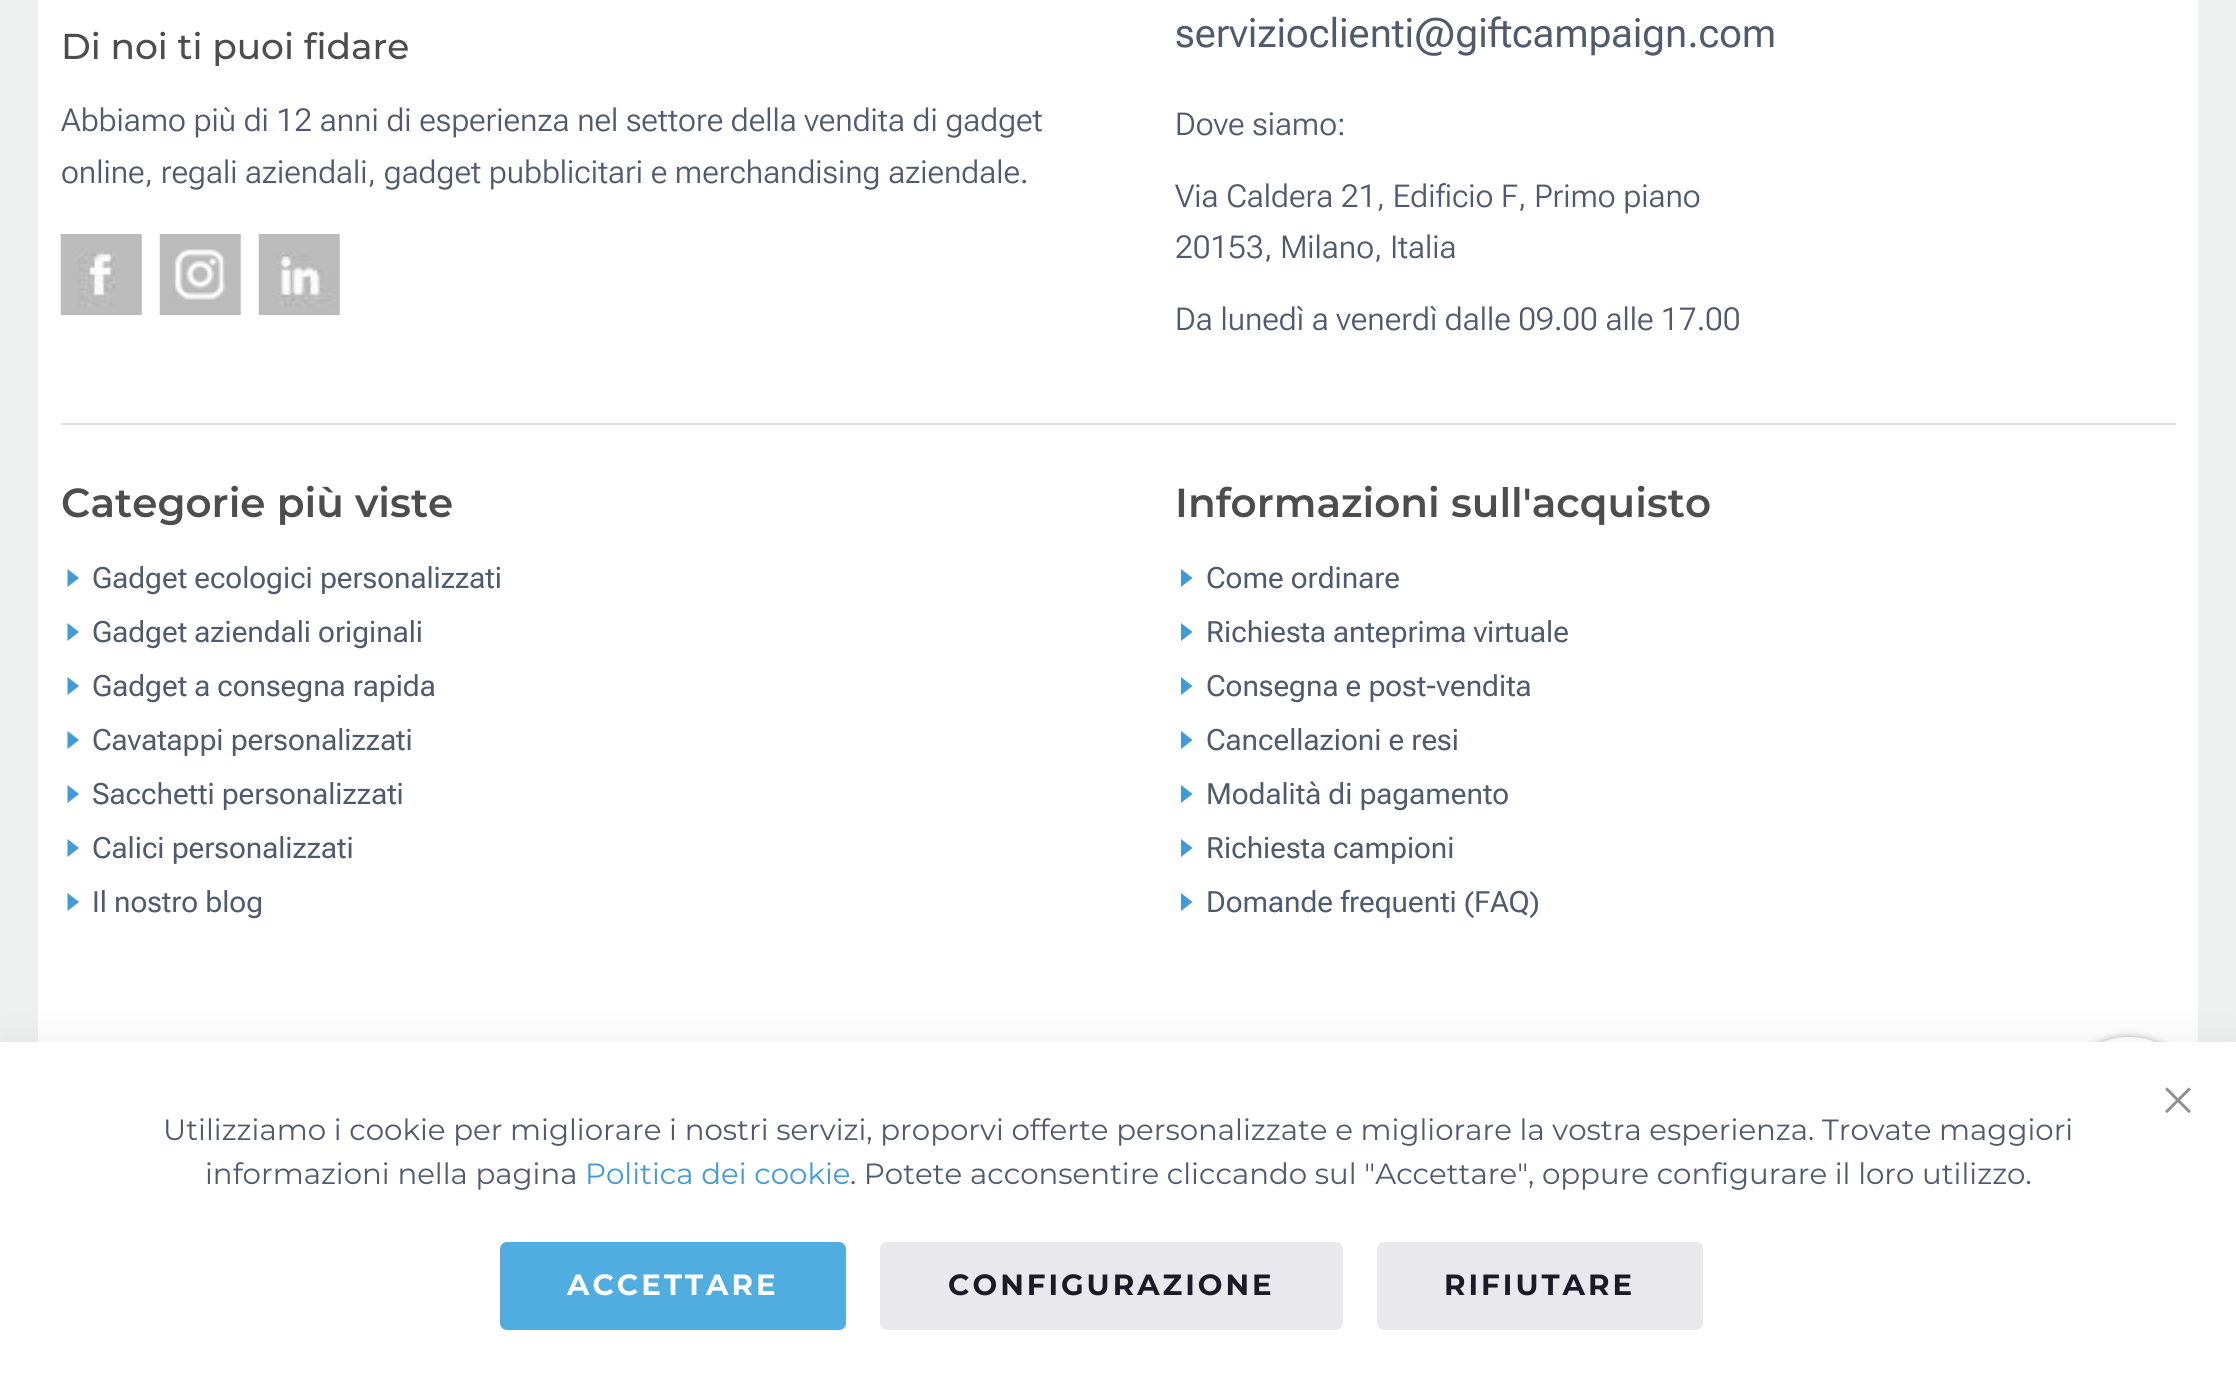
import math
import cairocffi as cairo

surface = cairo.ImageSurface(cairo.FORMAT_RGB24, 2236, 1397)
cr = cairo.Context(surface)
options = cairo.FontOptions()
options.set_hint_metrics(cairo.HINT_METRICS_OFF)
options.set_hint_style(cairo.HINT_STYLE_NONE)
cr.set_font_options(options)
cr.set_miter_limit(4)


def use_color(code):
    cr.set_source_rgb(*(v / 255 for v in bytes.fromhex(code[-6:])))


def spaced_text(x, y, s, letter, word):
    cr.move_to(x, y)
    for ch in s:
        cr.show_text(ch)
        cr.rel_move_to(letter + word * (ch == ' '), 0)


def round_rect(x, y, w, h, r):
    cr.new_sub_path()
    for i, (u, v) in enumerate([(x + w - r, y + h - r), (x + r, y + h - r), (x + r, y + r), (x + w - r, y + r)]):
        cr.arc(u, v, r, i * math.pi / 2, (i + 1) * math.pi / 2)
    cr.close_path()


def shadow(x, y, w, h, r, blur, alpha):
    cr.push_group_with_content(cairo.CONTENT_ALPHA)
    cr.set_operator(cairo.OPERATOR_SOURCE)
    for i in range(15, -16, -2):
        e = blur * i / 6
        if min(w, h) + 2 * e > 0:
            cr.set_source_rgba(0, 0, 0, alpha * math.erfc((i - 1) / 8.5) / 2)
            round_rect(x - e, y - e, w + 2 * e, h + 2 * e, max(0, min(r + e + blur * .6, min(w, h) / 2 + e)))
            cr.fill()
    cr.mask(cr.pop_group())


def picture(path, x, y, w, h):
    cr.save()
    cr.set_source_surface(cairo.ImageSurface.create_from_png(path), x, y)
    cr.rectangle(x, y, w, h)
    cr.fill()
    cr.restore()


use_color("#eef1f0")
cr.paint()
use_color("#ffffff")
cr.rectangle(38, 0, 2160, 1042)
cr.fill()
use_color("#dedede")
cr.rectangle(61, 423, 2115, 2)
cr.fill()
cr.select_font_face("Montserrat Medium")
cr.set_font_size(36)
use_color("#4d4d4d")
cr.move_to(61, 59)
cr.show_text("Di noi ti puoi fidare")
cr.select_font_face("Roboto Flex Light")
cr.set_font_size(31.5)
use_color("#4f5a6d")
cr.move_to(61, 131)
cr.show_text("Abbiamo più di 12 anni di esperienza nel settore della vendita di gadget")
cr.move_to(61, 183)
cr.show_text("online, regali aziendali, gadget pubblicitari e merchandising aziendale.")
picture("img1.png", 60, 234, 82, 81)
picture("img2.png", 159, 234, 82, 81)
picture("img3.png", 258, 234, 82, 81)
cr.select_font_face("Roboto Flex")
cr.set_font_size(40.5)
cr.move_to(1175, 47)
cr.show_text("servizioclienti@giftcampaign.com")
cr.select_font_face("Roboto Flex Light")
cr.set_font_size(31.5)
cr.move_to(1175, 135)
cr.show_text("Dove siamo:")
cr.move_to(1175, 207)
cr.show_text("Via Caldera 21, Edificio F, Primo piano")
cr.move_to(1175, 258)
cr.show_text("20153, Milano, Italia")
cr.move_to(1175, 330)
cr.show_text("Da lunedì a venerdì dalle 09.00 alle 17.00")
cr.select_font_face("Montserrat SemiBold")
cr.set_font_size(40.5)
use_color("#4d4d4d")
cr.move_to(61, 517)
cr.show_text("Categorie più viste")
use_color("#429ad6")
cr.new_path()
cr.move_to(67.5, 587)
cr.line_to(67.5, 569)
cr.line_to(79, 578)
cr.close_path()
cr.fill()
cr.select_font_face("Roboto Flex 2")
cr.set_font_size(29.25)
use_color("#4f5a6d")
cr.move_to(92, 588)
cr.show_text("Gadget ecologici personalizzati")
use_color("#429ad6")
cr.new_path()
cr.move_to(67.5, 641)
cr.line_to(67.5, 623)
cr.line_to(79, 632)
cr.close_path()
cr.fill()
use_color("#4f5a6d")
cr.move_to(92, 642)
cr.show_text("Gadget aziendali originali")
use_color("#429ad6")
cr.new_path()
cr.move_to(67.5, 695)
cr.line_to(67.5, 677)
cr.line_to(79, 686)
cr.close_path()
cr.fill()
use_color("#4f5a6d")
cr.move_to(92, 696)
cr.show_text("Gadget a consegna rapida")
use_color("#429ad6")
cr.new_path()
cr.move_to(67.5, 749)
cr.line_to(67.5, 731)
cr.line_to(79, 740)
cr.close_path()
cr.fill()
use_color("#4f5a6d")
cr.move_to(92, 750)
cr.show_text("Cavatappi personalizzati")
use_color("#429ad6")
cr.new_path()
cr.move_to(67.5, 803)
cr.line_to(67.5, 785)
cr.line_to(79, 794)
cr.close_path()
cr.fill()
use_color("#4f5a6d")
cr.move_to(92, 804)
cr.show_text("Sacchetti personalizzati")
use_color("#429ad6")
cr.new_path()
cr.move_to(67.5, 857)
cr.line_to(67.5, 839)
cr.line_to(79, 848)
cr.close_path()
cr.fill()
use_color("#4f5a6d")
cr.move_to(92, 858)
cr.show_text("Calici personalizzati")
use_color("#429ad6")
cr.new_path()
cr.move_to(67.5, 911)
cr.line_to(67.5, 893)
cr.line_to(79, 902)
cr.close_path()
cr.fill()
use_color("#4f5a6d")
cr.move_to(92, 912)
cr.show_text("Il nostro blog")
cr.select_font_face("Montserrat SemiBold")
cr.set_font_size(40.5)
use_color("#4d4d4d")
cr.move_to(1175, 517)
cr.show_text("Informazioni sull'acquisto")
use_color("#429ad6")
cr.new_path()
cr.move_to(1181, 587)
cr.line_to(1181, 569)
cr.line_to(1192.5, 578)
cr.close_path()
cr.fill()
cr.select_font_face("Roboto Flex 2")
cr.set_font_size(29.25)
use_color("#4f5a6d")
cr.move_to(1206, 588)
cr.show_text("Come ordinare")
use_color("#429ad6")
cr.new_path()
cr.move_to(1181, 641)
cr.line_to(1181, 623)
cr.line_to(1192.5, 632)
cr.close_path()
cr.fill()
use_color("#4f5a6d")
cr.move_to(1206, 642)
cr.show_text("Richiesta anteprima virtuale")
use_color("#429ad6")
cr.new_path()
cr.move_to(1181, 695)
cr.line_to(1181, 677)
cr.line_to(1192.5, 686)
cr.close_path()
cr.fill()
use_color("#4f5a6d")
cr.move_to(1206, 696)
cr.show_text("Consegna e post-vendita")
use_color("#429ad6")
cr.new_path()
cr.move_to(1181, 749)
cr.line_to(1181, 731)
cr.line_to(1192.5, 740)
cr.close_path()
cr.fill()
use_color("#4f5a6d")
cr.move_to(1206, 750)
cr.show_text("Cancellazioni e resi")
use_color("#429ad6")
cr.new_path()
cr.move_to(1181, 803)
cr.line_to(1181, 785)
cr.line_to(1192.5, 794)
cr.close_path()
cr.fill()
use_color("#4f5a6d")
cr.move_to(1206, 804)
cr.show_text("Modalità di pagamento")
use_color("#429ad6")
cr.new_path()
cr.move_to(1181, 857)
cr.line_to(1181, 839)
cr.line_to(1192.5, 848)
cr.close_path()
cr.fill()
use_color("#4f5a6d")
cr.move_to(1206, 858)
cr.show_text("Richiesta campioni")
use_color("#429ad6")
cr.new_path()
cr.move_to(1181, 911)
cr.line_to(1181, 893)
cr.line_to(1192.5, 902)
cr.close_path()
cr.fill()
use_color("#4f5a6d")
cr.move_to(1206, 912)
cr.show_text("Domande frequenti (FAQ)")
use_color("#000000")
shadow(2057, 1037, 144, 144, 72, 3.5, 0.3)
use_color("#ffffff")
cr.arc(2129, 1109, 72, 0, 2 * math.pi)
cr.fill()
use_color("#000000")
shadow(0, 1037, 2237, 356, 0, 20, 0.06)
use_color("#ffffff")
cr.rectangle(0, 1042, 2236, 355)
cr.fill()
picture("img4.png", 2165, 1087, 26, 26)
cr.select_font_face("Montserrat")
use_color("#4f5a6d")
cr.move_to(163, 1140)
cr.show_text("Utilizziamo i cookie per migliorare i nostri servizi, proporvi offerte personalizzate e migliorare la vostra esperienza. Trovate maggiori")
cr.move_to(205, 1184)
cr.show_text("informazioni nella pagina")
use_color("#429ad6")
cr.move_to(585, 1184)
cr.show_text("Politica dei cookie")
use_color("#4f5a6d")
cr.move_to(850, 1184)
cr.show_text(". Potete acconsentire cliccando sul \"Accettare\", oppure configurare il loro utilizzo.")
use_color("#51ace0")
round_rect(500, 1242, 346, 88, 7)
cr.fill()
cr.select_font_face("Montserrat", cairo.FONT_SLANT_NORMAL, cairo.FONT_WEIGHT_BOLD)
use_color("#ffffff")
spaced_text(567, 1295, "ACCETTARE", 3, 0)
use_color("#e9e9ed")
round_rect(880, 1242, 463, 88, 7)
cr.fill()
use_color("#1c1a27")
spaced_text(948, 1295, "CONFIGURAZIONE", 3, 0)
use_color("#e9e9ed")
round_rect(1377, 1242, 326, 88, 7)
cr.fill()
use_color("#1c1a27")
spaced_text(1444, 1295, "RIFIUTARE", 3, 0)
surface.write_to_png("result.png")
